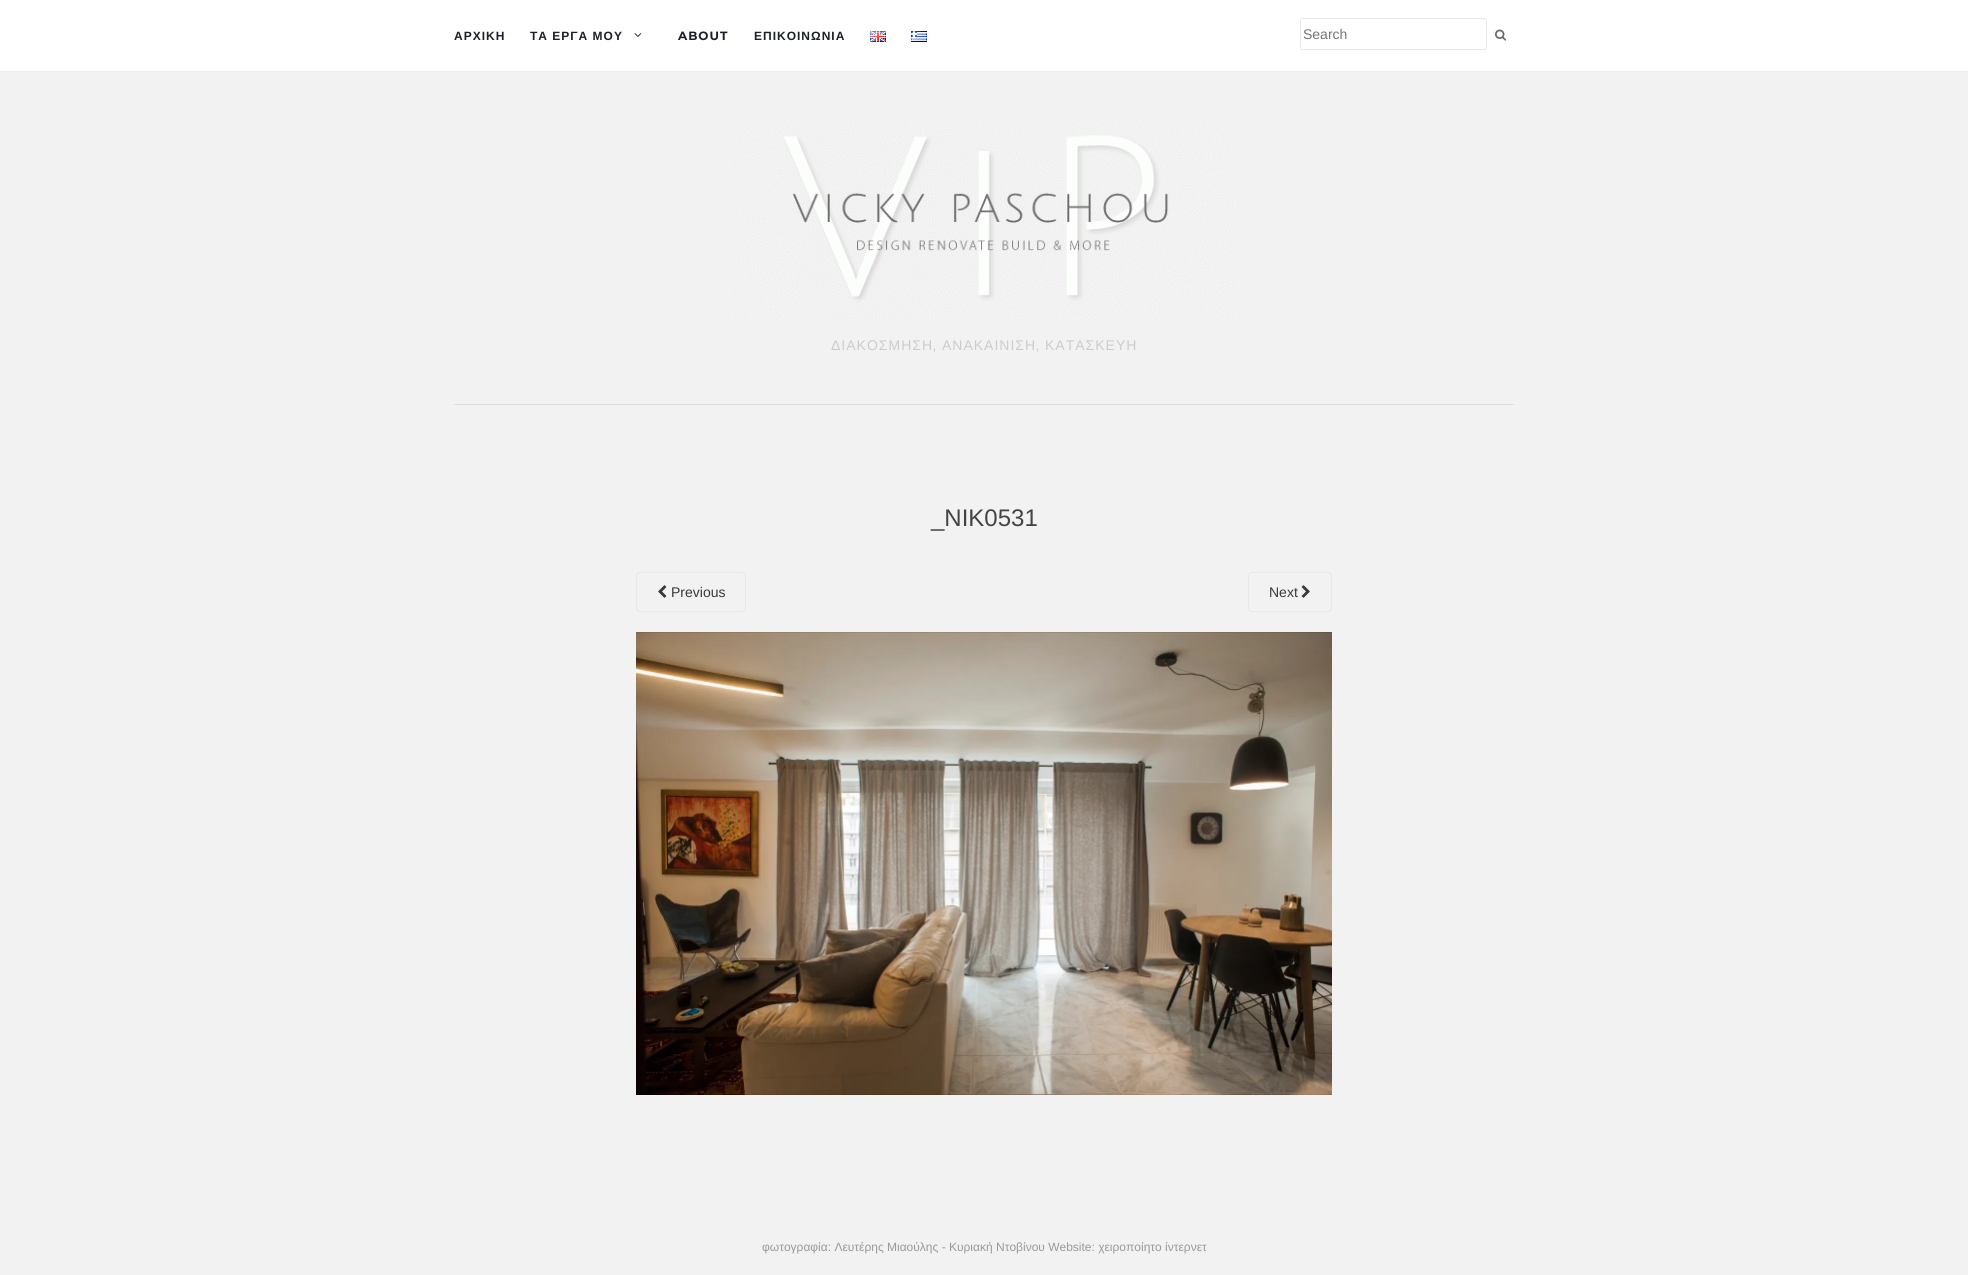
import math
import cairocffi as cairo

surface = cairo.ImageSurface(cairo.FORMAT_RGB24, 1968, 1275)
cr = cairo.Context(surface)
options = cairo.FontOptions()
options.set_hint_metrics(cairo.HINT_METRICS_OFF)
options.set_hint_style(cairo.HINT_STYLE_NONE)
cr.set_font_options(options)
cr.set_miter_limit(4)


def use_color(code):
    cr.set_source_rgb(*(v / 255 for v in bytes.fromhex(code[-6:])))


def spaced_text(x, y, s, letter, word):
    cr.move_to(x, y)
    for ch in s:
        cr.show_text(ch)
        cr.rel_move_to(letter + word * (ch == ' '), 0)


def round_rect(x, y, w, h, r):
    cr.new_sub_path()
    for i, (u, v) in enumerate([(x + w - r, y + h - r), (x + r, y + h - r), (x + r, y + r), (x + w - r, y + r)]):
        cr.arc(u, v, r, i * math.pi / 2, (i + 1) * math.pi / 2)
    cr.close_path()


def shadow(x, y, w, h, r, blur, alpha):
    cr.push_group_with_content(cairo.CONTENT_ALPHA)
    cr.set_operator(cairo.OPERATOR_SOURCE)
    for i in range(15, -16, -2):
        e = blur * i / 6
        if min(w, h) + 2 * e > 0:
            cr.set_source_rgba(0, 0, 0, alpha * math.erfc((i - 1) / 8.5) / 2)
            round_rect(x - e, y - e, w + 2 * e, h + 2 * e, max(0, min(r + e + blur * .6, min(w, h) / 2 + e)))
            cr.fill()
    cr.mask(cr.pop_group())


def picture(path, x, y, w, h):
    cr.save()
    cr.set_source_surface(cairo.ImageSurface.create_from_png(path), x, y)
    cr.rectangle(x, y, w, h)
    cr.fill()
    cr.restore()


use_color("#f2f2f2")
cr.paint()
use_color("#e3e3e3")
shadow(0, 0, 1968, 71, 0, 1, 1)
use_color("#ffffff")
cr.rectangle(0, 0, 1968, 71)
cr.fill()
cr.select_font_face("Liberation Sans", cairo.FONT_SLANT_NORMAL, cairo.FONT_WEIGHT_BOLD)
cr.set_font_size(12)
use_color("#1c202a")
spaced_text(454, 40, "ΑΡΧΙΚΗ", 1, 0)
spaced_text(530, 40, "ΤΑ ΕΡΓΑ ΜΟΥ", 1, 0)
picture("img1.png", 634, 33, 8, 4)
cr.select_font_face("Montserrat", cairo.FONT_SLANT_NORMAL, cairo.FONT_WEIGHT_BOLD)
spaced_text(678, 40, "ABOUT", 1, 0)
cr.select_font_face("Liberation Sans", cairo.FONT_SLANT_NORMAL, cairo.FONT_WEIGHT_BOLD)
spaced_text(754, 40, "ΕΠΙΚΟΙΝΩΝΙΑ", 1, 0)
picture("img2.png", 870, 31, 16, 11)
picture("img3.png", 911, 31, 16, 11)
round_rect(1300.5, 18.5, 186, 31, 2.5)
use_color("#e8e8e8")
cr.set_line_width(1)
cr.stroke()
cr.select_font_face("Liberation Sans")
cr.set_font_size(14)
use_color("#757575")
cr.move_to(1303, 39)
cr.show_text("Search")
picture("img4.png", 1495, 29, 12, 12)
picture("img5.png", 733, 121, 502, 200)
use_color("#cccccc")
spaced_text(831, 350, "ΔΙΑΚΟΣΜΗΣΗ", 1, 0)
spaced_text(942, 350, "ΑΝΑΚΑΙΝΙΣΗ", 1, 0)
spaced_text(1045, 350, "ΚΑΤΑΣΚΕΥΗ", 1, 0)
cr.select_font_face("Montserrat")
spaced_text(933, 350, ",", 1, 0)
spaced_text(1036, 350, ",", 1, 0)
use_color("#dddddd")
cr.rectangle(454, 404, 1060, 1)
cr.fill()
cr.select_font_face("Liberation Sans")
cr.set_font_size(24)
use_color("#444444")
cr.move_to(931, 526)
cr.show_text("_NIK0531")
round_rect(636.5, 572.5, 109, 39, 3.5)
use_color("#e8e8e8")
cr.stroke()
picture("img6.png", 658, 585, 9, 13)
cr.set_font_size(14)
use_color("#393939")
cr.move_to(671, 597)
cr.show_text("Previous")
round_rect(1248.5, 572.5, 83, 39, 3.5)
use_color("#e8e8e8")
cr.stroke()
use_color("#393939")
cr.move_to(1269, 597)
cr.show_text("Next")
picture("img7.png", 1301, 585, 9, 13)
picture("img8.png", 636, 632, 696, 463)
cr.set_font_size(12)
use_color("#999999")
cr.move_to(762, 1251)
cr.show_text("φωτογραφία: Λευτέρης Μιαούλης - Κυριακή Ντοβίνου Website: χειροποίητο ίντερνετ")
surface.write_to_png("result.png")
